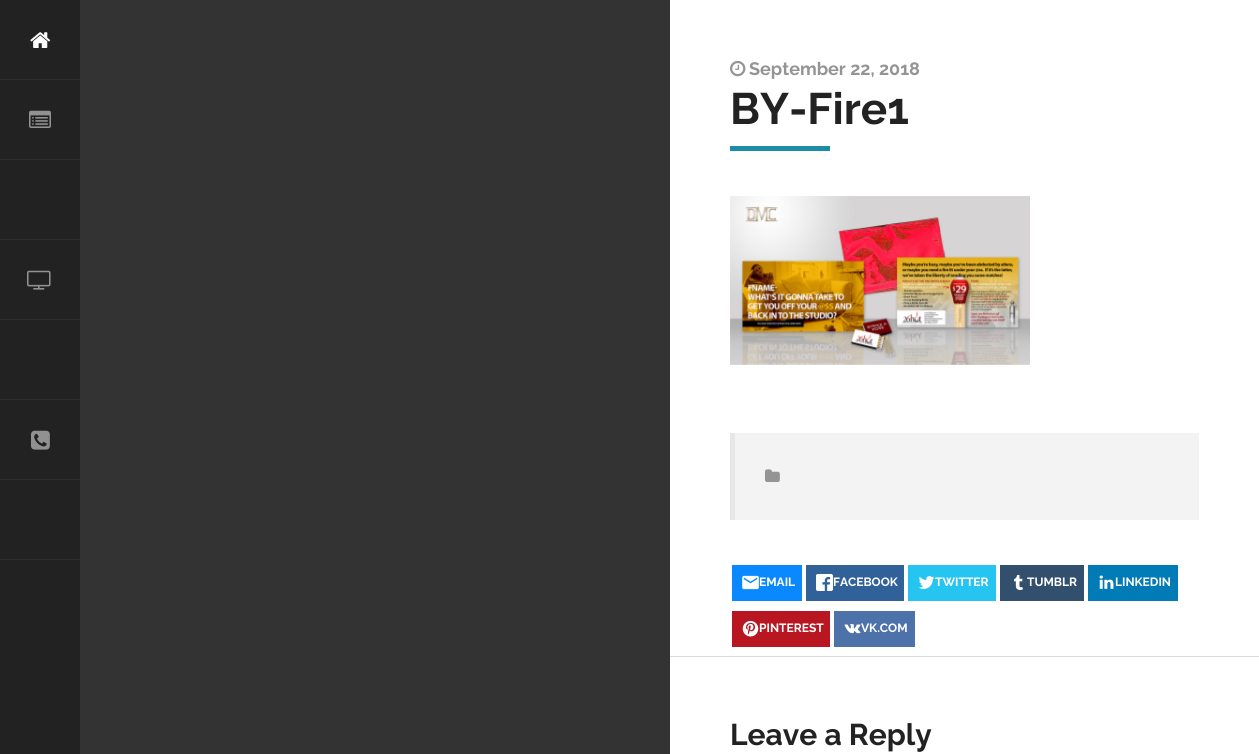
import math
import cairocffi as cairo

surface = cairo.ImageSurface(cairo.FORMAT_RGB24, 1259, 754)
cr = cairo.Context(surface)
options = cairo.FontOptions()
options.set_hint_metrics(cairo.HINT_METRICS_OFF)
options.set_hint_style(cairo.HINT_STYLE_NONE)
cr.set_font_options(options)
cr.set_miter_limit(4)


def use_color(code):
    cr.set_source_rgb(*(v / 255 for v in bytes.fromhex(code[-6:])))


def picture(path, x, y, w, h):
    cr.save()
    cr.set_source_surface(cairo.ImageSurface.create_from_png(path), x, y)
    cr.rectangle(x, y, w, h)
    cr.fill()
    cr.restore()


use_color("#ffffff")
cr.paint()
use_color("#222222")
cr.rectangle(0, 0, 80, 754)
cr.fill()
use_color("#2d2d2d")
cr.rectangle(0, 79, 80, 1)
cr.fill()
picture("img1.png", 30, 32, 21, 16)
cr.rectangle(0, 159, 80, 1)
cr.fill()
picture("img2.png", 29, 110, 22, 18)
cr.rectangle(0, 239, 80, 1)
cr.fill()
cr.rectangle(0, 319, 80, 1)
cr.fill()
picture("img3.png", 27, 270, 24, 20)
cr.rectangle(0, 399, 80, 1)
cr.fill()
cr.rectangle(0, 479, 80, 1)
cr.fill()
picture("img4.png", 31, 430, 19, 20)
cr.rectangle(0, 559, 80, 1)
cr.fill()
use_color("#333333")
cr.rectangle(80, 0, 590, 754)
cr.fill()
picture("img5.png", 730, 60, 16, 17)
cr.select_font_face("Raleway", cairo.FONT_SLANT_NORMAL, cairo.FONT_WEIGHT_BOLD)
cr.set_font_size(18)
use_color("#949494")
cr.move_to(749, 75)
cr.show_text("September 22, 2018")
cr.set_font_size(44)
use_color("#222222")
cr.move_to(730, 124)
cr.show_text("BY-Fire1")
use_color("#1d8caa")
cr.rectangle(730, 146, 100, 5)
cr.fill()
picture("img6.png", 730, 196, 300, 169)
use_color("#f3f3f3")
cr.rectangle(735, 433, 464, 87)
cr.fill()
use_color("#e7e7e7")
cr.rectangle(730, 433, 5, 87)
cr.fill()
picture("img7.png", 765, 469, 15, 13)
use_color("#0a88ff")
cr.rectangle(732, 565, 70, 36)
cr.fill()
picture("img8.png", 742, 575, 17, 15)
cr.set_font_size(12)
use_color("#ffffff")
cr.move_to(759, 586)
cr.show_text("EMAIL")
use_color("#306199")
cr.rectangle(806, 565, 98, 36)
cr.fill()
picture("img9.png", 816, 574, 17, 17)
use_color("#ffffff")
cr.move_to(833, 586)
cr.show_text("FACEBOOK")
use_color("#26c4f1")
cr.rectangle(908, 565, 88, 36)
cr.fill()
picture("img10.png", 918, 576, 17, 13)
use_color("#ffffff")
cr.move_to(935, 586)
cr.show_text("TWITTER")
use_color("#32506d")
cr.rectangle(1000, 565, 84, 36)
cr.fill()
picture("img11.png", 1014, 574, 9, 16)
use_color("#ffffff")
cr.move_to(1027, 586)
cr.show_text("TUMBLR")
use_color("#007bb6")
cr.rectangle(1088, 565, 90, 36)
cr.fill()
picture("img12.png", 1099, 575, 15, 14)
use_color("#ffffff")
cr.move_to(1115, 586)
cr.show_text("LINKEDIN")
use_color("#b81621")
cr.rectangle(732, 611, 98, 36)
cr.fill()
picture("img13.png", 742, 621, 17, 16)
use_color("#ffffff")
cr.move_to(759, 632)
cr.show_text("PINTEREST")
use_color("#4d71a9")
cr.rectangle(834, 611, 81, 36)
cr.fill()
picture("img14.png", 844, 624, 17, 10)
use_color("#ffffff")
cr.move_to(861, 632)
cr.show_text("VK.COM")
use_color("#d9d9d9")
cr.rectangle(670, 656, 589, 1)
cr.fill()
cr.set_font_size(30)
use_color("#222222")
cr.move_to(730, 745)
cr.show_text("Leave a Reply")
surface.write_to_png("result.png")
